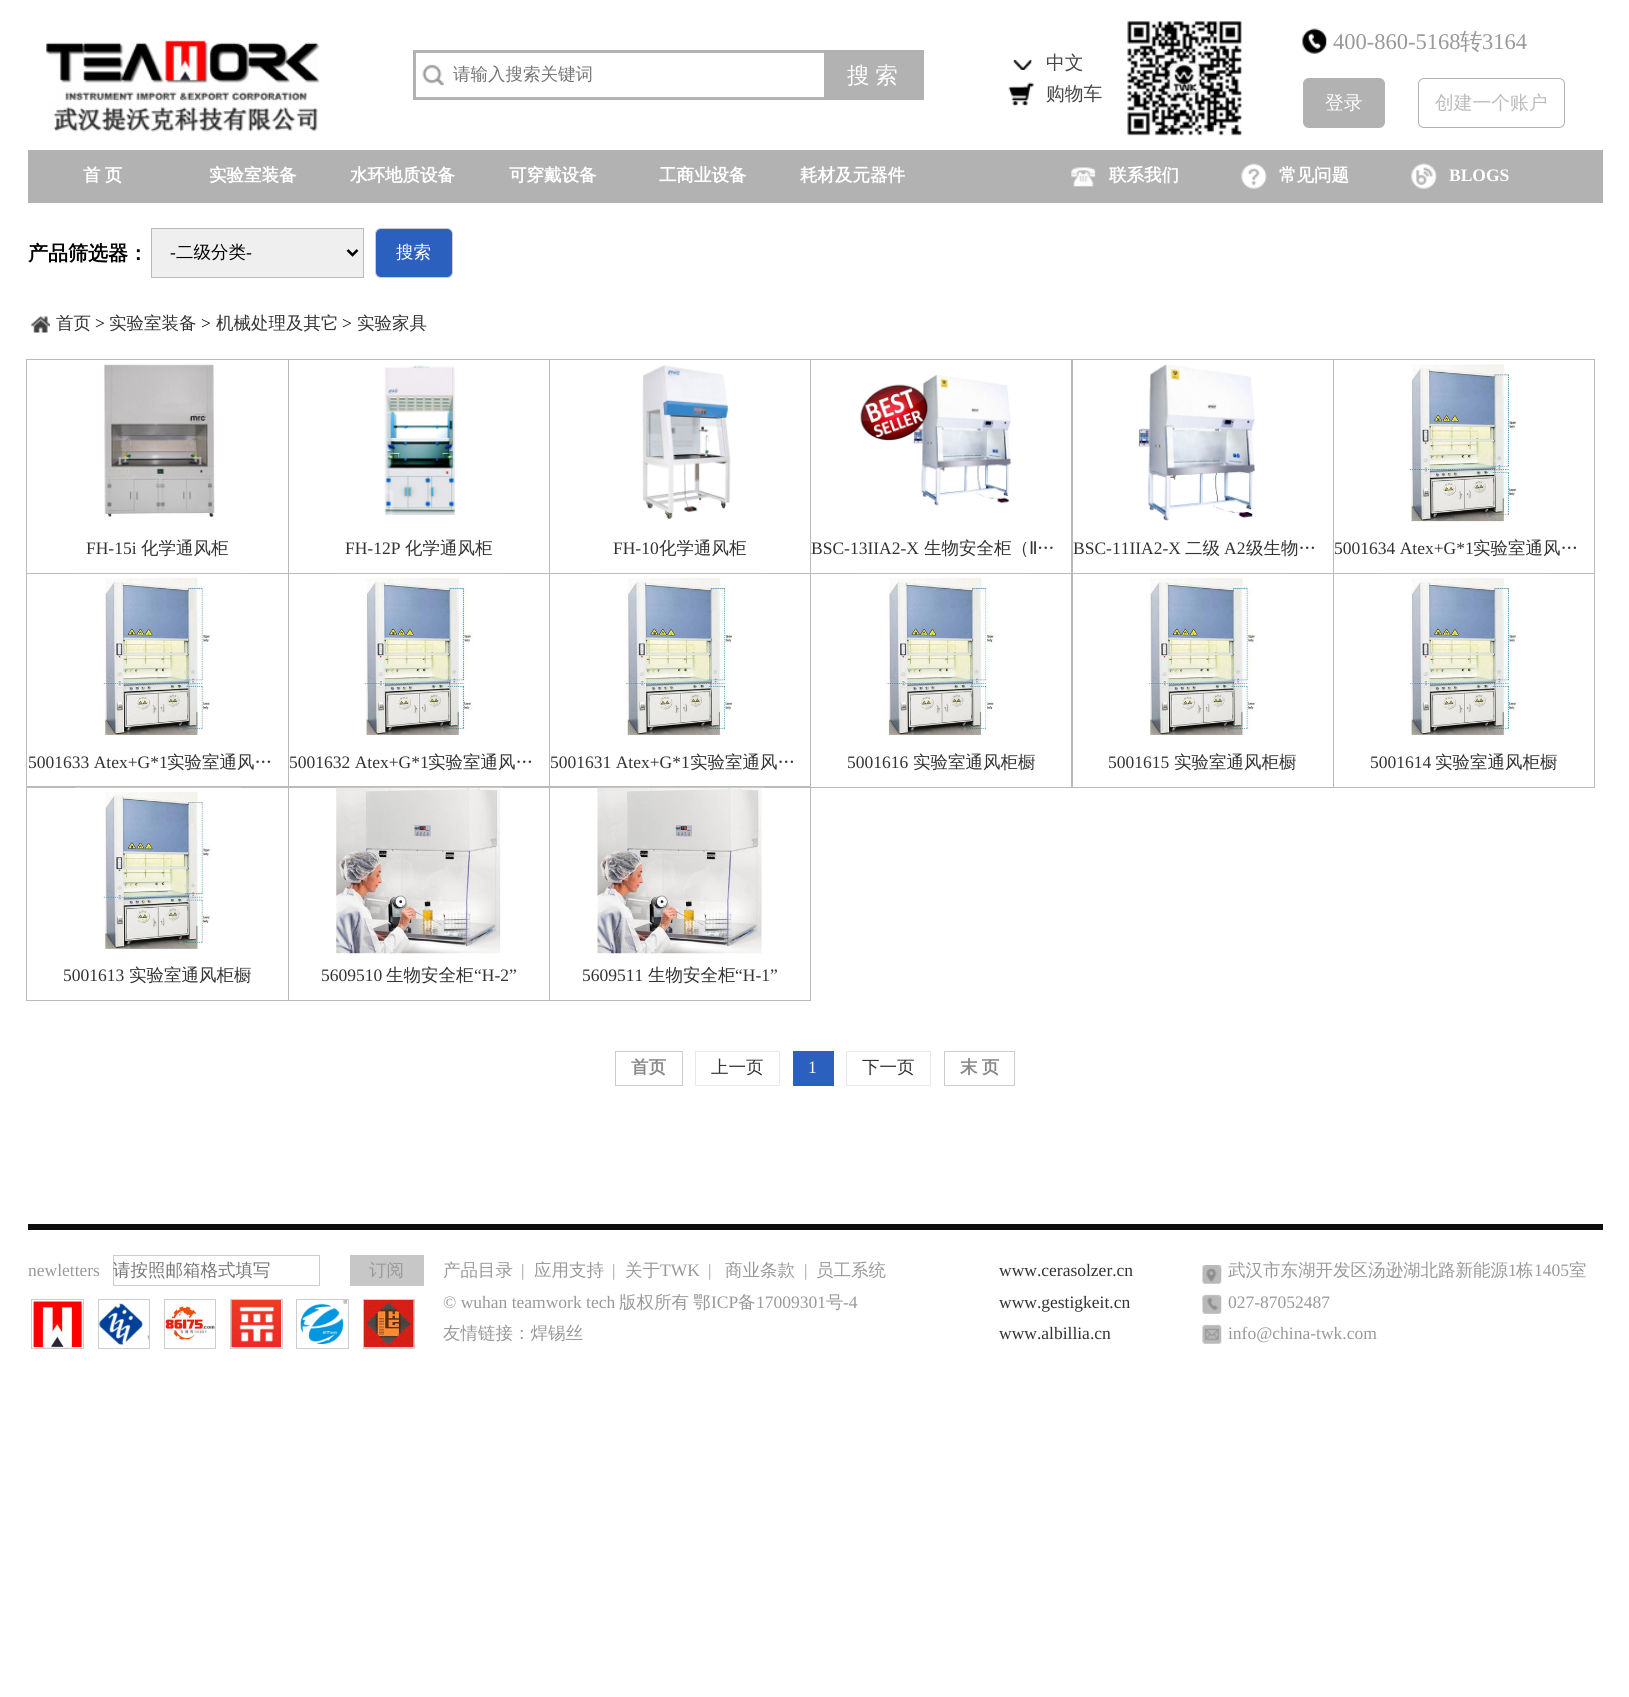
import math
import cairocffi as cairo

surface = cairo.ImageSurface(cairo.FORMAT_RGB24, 1629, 1697)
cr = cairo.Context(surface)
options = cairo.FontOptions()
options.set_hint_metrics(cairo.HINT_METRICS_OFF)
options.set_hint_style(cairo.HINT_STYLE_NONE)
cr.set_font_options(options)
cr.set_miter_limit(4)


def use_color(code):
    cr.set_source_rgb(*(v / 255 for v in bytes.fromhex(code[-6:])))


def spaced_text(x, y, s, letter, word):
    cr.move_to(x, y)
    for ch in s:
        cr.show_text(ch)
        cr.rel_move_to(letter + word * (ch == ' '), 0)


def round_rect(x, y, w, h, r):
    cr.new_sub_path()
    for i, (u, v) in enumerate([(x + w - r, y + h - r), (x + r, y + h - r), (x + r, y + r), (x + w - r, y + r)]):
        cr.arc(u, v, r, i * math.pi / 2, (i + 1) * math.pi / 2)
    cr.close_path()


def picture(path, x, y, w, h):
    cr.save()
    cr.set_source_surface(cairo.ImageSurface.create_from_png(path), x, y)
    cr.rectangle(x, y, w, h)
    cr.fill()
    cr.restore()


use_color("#ffffff")
cr.paint()
picture("img1.png", 46, 39, 274, 93)
cr.rectangle(414.5, 51.5, 508, 47)
use_color("#b2b2b2")
cr.set_line_width(3)
cr.stroke()
picture("img2.png", 422, 64, 22, 22)
cr.select_font_face("WenQuanYi Zen Hei Medium")
cr.set_font_size(17.5)
use_color("#757575")
cr.move_to(453, 80)
cr.show_text("请输入搜索关键词")
use_color("#b2b2b2")
cr.rectangle(824, 53, 97, 44)
cr.fill()
cr.set_font_size(22.5)
use_color("#ffffff")
spaced_text(847, 83, "搜 索", 0, -1)
picture("img3.png", 1013, 60, 19, 10)
cr.set_font_size(18.75)
use_color("#454545")
cr.move_to(1046, 69)
cr.show_text("中文")
picture("img4.png", 1008, 82, 26, 24)
cr.move_to(1046, 100)
cr.show_text("购物车")
picture("img5.png", 1127, 21, 115, 115)
picture("img6.png", 1302, 28, 25, 26)
cr.select_font_face("Liberation Serif")
cr.set_font_size(22.5)
use_color("#999999")
cr.move_to(1333, 49)
cr.show_text("400-860-5168")
cr.select_font_face("WenQuanYi Zen Hei Medium")
cr.move_to(1460, 49)
cr.show_text("转")
cr.select_font_face("Liberation Serif")
cr.move_to(1482, 49)
cr.show_text("3164")
use_color("#b2b2b2")
round_rect(1303, 78, 82, 50, 6)
cr.fill()
cr.select_font_face("WenQuanYi Zen Hei Medium")
cr.set_font_size(18.75)
use_color("#ffffff")
cr.move_to(1325, 109)
cr.show_text("登录")
round_rect(1418.5, 78.5, 146, 49, 5.5)
use_color("#b2b2b2")
cr.set_line_width(1)
cr.stroke()
use_color("#bcbcbc")
cr.move_to(1435, 109)
cr.show_text("创建一个账户")
use_color("#b2b2b2")
cr.rectangle(28, 150, 1575, 53)
cr.fill()
cr.select_font_face("WenQuanYi Zen Hei", cairo.FONT_SLANT_NORMAL, cairo.FONT_WEIGHT_BOLD)
cr.set_font_size(17.5)
use_color("#ffffff")
spaced_text(83, 181, "首 页", 0, -1)
cr.move_to(209, 181)
cr.show_text("实验室装备")
cr.move_to(350, 181)
cr.show_text("水环地质设备")
cr.move_to(509, 181)
cr.show_text("可穿戴设备")
cr.move_to(659, 181)
cr.show_text("工商业设备")
cr.move_to(800, 181)
cr.show_text("耗材及元器件")
picture("img7.png", 1071, 167, 25, 20)
cr.move_to(1109, 181)
cr.show_text("联系我们")
picture("img8.png", 1241, 163, 26, 26)
cr.move_to(1279, 181)
cr.show_text("常见问题")
picture("img9.png", 1411, 163, 26, 26)
cr.select_font_face("Liberation Serif", cairo.FONT_SLANT_NORMAL, cairo.FONT_WEIGHT_BOLD)
cr.move_to(1449, 181)
cr.show_text("BLOGS")
cr.select_font_face("WenQuanYi Zen Hei", cairo.FONT_SLANT_NORMAL, cairo.FONT_WEIGHT_BOLD)
cr.set_font_size(20)
use_color("#000000")
cr.move_to(28, 260)
cr.show_text("产品筛选器：")
use_color("#efefef")
cr.rectangle(151.5, 228.5, 212, 49)
cr.fill_preserve()
use_color("#bababa")
cr.stroke()
cr.new_path()
cr.move_to(347.5, 250)
cr.line_to(352.5, 255)
cr.line_to(357.5, 250)
use_color("#000000")
cr.set_line_width(2.5)
cr.stroke()
cr.select_font_face("Liberation Serif")
cr.set_font_size(17.5)
cr.move_to(170, 258)
cr.show_text("-")
cr.select_font_face("WenQuanYi Zen Hei Medium")
cr.move_to(176, 258)
cr.show_text("二级分类")
cr.select_font_face("Liberation Serif")
cr.move_to(246, 258)
cr.show_text("-")
use_color("#2c60be")
round_rect(375.5, 228.5, 77, 49, 5.5)
cr.fill_preserve()
use_color("#cccccc")
cr.set_line_width(1)
cr.stroke()
cr.select_font_face("WenQuanYi Zen Hei Medium")
use_color("#ffffff")
cr.move_to(396, 258)
cr.show_text("搜索")
picture("img10.png", 31, 316, 19, 17)
use_color("#333333")
cr.move_to(56, 329)
cr.show_text("首页")
cr.select_font_face("Liberation Serif")
use_color("#000000")
cr.move_to(95, 329)
cr.show_text(">")
cr.select_font_face("WenQuanYi Zen Hei Medium")
use_color("#333333")
cr.move_to(109, 329)
cr.show_text("实验室装备")
cr.select_font_face("Liberation Serif")
use_color("#000000")
cr.move_to(201, 329)
cr.show_text(">")
cr.select_font_face("WenQuanYi Zen Hei Medium")
use_color("#333333")
cr.move_to(216, 329)
cr.show_text("机械处理及其它")
cr.select_font_face("Liberation Serif")
use_color("#000000")
cr.move_to(342, 329)
cr.show_text(">")
cr.select_font_face("WenQuanYi Zen Hei Medium")
use_color("#333333")
cr.move_to(357, 329)
cr.show_text("实验家具")
cr.rectangle(26.5, 359.5, 262, 214)
use_color("#bababa")
cr.stroke()
picture("img11.png", 104, 364, 111, 153)
cr.select_font_face("Liberation Serif")
use_color("#333333")
cr.move_to(86, 554)
cr.show_text("FH-15i")
cr.select_font_face("WenQuanYi Zen Hei Medium")
cr.move_to(141, 554)
cr.show_text("化学通风柜")
cr.rectangle(288.5, 359.5, 261, 214)
use_color("#bababa")
cr.stroke()
picture("img12.png", 384, 365, 71, 150)
cr.select_font_face("Liberation Serif")
use_color("#333333")
cr.move_to(345, 554)
cr.show_text("FH-12P")
cr.select_font_face("WenQuanYi Zen Hei Medium")
cr.move_to(405, 554)
cr.show_text("化学通风柜")
cr.rectangle(549.5, 359.5, 261, 214)
use_color("#bababa")
cr.stroke()
picture("img13.png", 642, 365, 89, 154)
cr.select_font_face("Liberation Serif")
use_color("#333333")
cr.move_to(613, 554)
cr.show_text("FH-10")
cr.select_font_face("WenQuanYi Zen Hei Medium")
cr.move_to(659, 554)
cr.show_text("化学通风柜")
cr.rectangle(810.5, 359.5, 262, 214)
use_color("#bababa")
cr.stroke()
picture("img14.png", 860, 375, 151, 131)
cr.select_font_face("Liberation Serif")
use_color("#333333")
cr.move_to(811, 554)
cr.show_text("BSC-13IIA2-X")
cr.select_font_face("WenQuanYi Zen Hei Medium")
cr.move_to(924, 554)
cr.show_text("生物安全柜（")
cr.select_font_face("DejaVu Sans")
cr.move_to(1029, 554)
cr.show_text("Ⅱ")
cr.select_font_face("WenQuanYi Zen Hei Medium")
cr.move_to(1037, 554)
cr.show_text("…")
cr.rectangle(1071.5, 359.5, 262, 214)
use_color("#bababa")
cr.stroke()
picture("img15.png", 1138, 364, 117, 157)
cr.select_font_face("Liberation Serif")
use_color("#333333")
cr.move_to(1073, 554)
cr.show_text("BSC-11IIA2-X")
cr.select_font_face("WenQuanYi Zen Hei Medium")
cr.move_to(1185, 554)
cr.show_text("二级")
cr.select_font_face("Liberation Serif")
cr.move_to(1224, 554)
cr.show_text("A2")
cr.select_font_face("WenQuanYi Zen Hei Medium")
cr.move_to(1246, 554)
cr.show_text("级生物…")
cr.rectangle(1333.5, 359.5, 261, 214)
use_color("#bababa")
cr.stroke()
picture("img16.png", 1408, 363, 111, 159)
cr.select_font_face("Liberation Serif")
use_color("#333333")
cr.move_to(1334, 554)
cr.show_text("5001634 Atex+G*1")
cr.select_font_face("WenQuanYi Zen Hei Medium")
cr.move_to(1473, 554)
cr.show_text("实验室通风…")
cr.rectangle(26.5, 573.5, 262, 214)
use_color("#bababa")
cr.stroke()
picture("img17.png", 75, 573, 166, 163)
cr.select_font_face("Liberation Serif")
use_color("#333333")
cr.move_to(28, 768)
cr.show_text("5001633 Atex+G*1")
cr.select_font_face("WenQuanYi Zen Hei Medium")
cr.move_to(167, 768)
cr.show_text("实验室通风…")
cr.rectangle(288.5, 573.5, 261, 214)
use_color("#bababa")
cr.stroke()
picture("img18.png", 337, 573, 165, 163)
cr.select_font_face("Liberation Serif")
use_color("#333333")
cr.move_to(289, 768)
cr.show_text("5001632 Atex+G*1")
cr.select_font_face("WenQuanYi Zen Hei Medium")
cr.move_to(428, 768)
cr.show_text("实验室通风…")
cr.rectangle(549.5, 573.5, 261, 214)
use_color("#bababa")
cr.stroke()
picture("img19.png", 598, 573, 165, 163)
cr.select_font_face("Liberation Serif")
use_color("#333333")
cr.move_to(550, 768)
cr.show_text("5001631 Atex+G*1")
cr.select_font_face("WenQuanYi Zen Hei Medium")
cr.move_to(690, 768)
cr.show_text("实验室通风…")
cr.rectangle(810.5, 573.5, 262, 214)
use_color("#bababa")
cr.stroke()
picture("img20.png", 859, 573, 166, 165)
cr.select_font_face("Liberation Serif")
use_color("#333333")
cr.move_to(847, 768)
cr.show_text("5001616")
cr.select_font_face("WenQuanYi Zen Hei Medium")
cr.move_to(913, 768)
cr.show_text("实验室通风柜橱")
cr.rectangle(1071.5, 573.5, 262, 214)
use_color("#bababa")
cr.stroke()
picture("img17.png", 1120, 573, 166, 163)
cr.select_font_face("Liberation Serif")
use_color("#333333")
cr.move_to(1108, 768)
cr.show_text("5001615")
cr.select_font_face("WenQuanYi Zen Hei Medium")
cr.move_to(1174, 768)
cr.show_text("实验室通风柜橱")
cr.rectangle(1333.5, 573.5, 261, 214)
use_color("#bababa")
cr.stroke()
picture("img18.png", 1382, 573, 165, 163)
cr.select_font_face("Liberation Serif")
use_color("#333333")
cr.move_to(1370, 768)
cr.show_text("5001614")
cr.select_font_face("WenQuanYi Zen Hei Medium")
cr.move_to(1435, 768)
cr.show_text("实验室通风柜橱")
cr.rectangle(26.5, 786.5, 262, 214)
use_color("#bababa")
cr.stroke()
picture("img21.png", 75, 787, 167, 162)
cr.select_font_face("Liberation Serif")
use_color("#333333")
cr.move_to(63, 981)
cr.show_text("5001613")
cr.select_font_face("WenQuanYi Zen Hei Medium")
cr.move_to(129, 981)
cr.show_text("实验室通风柜橱")
cr.rectangle(288.5, 786.5, 261, 214)
use_color("#bababa")
cr.stroke()
picture("img22.png", 336, 787, 167, 167)
cr.select_font_face("Liberation Serif")
use_color("#333333")
cr.move_to(321, 981)
cr.show_text("5609510")
cr.select_font_face("WenQuanYi Zen Hei Medium")
cr.move_to(386, 981)
cr.show_text("生物安全柜")
cr.select_font_face("Liberation Serif")
cr.move_to(474, 981)
cr.show_text("“H-2”")
cr.rectangle(549.5, 786.5, 261, 214)
use_color("#bababa")
cr.stroke()
picture("img23.png", 597, 787, 167, 167)
use_color("#333333")
cr.move_to(582, 981)
cr.show_text("5609511")
cr.select_font_face("WenQuanYi Zen Hei Medium")
cr.move_to(648, 981)
cr.show_text("生物安全柜")
cr.select_font_face("Liberation Serif")
cr.move_to(735, 981)
cr.show_text("“H-1”")
cr.rectangle(615.5, 1051.5, 67, 34)
use_color("#cccccc")
cr.stroke()
cr.select_font_face("WenQuanYi Zen Hei", cairo.FONT_SLANT_NORMAL, cairo.FONT_WEIGHT_BOLD)
use_color("#888888")
cr.move_to(631, 1073)
cr.show_text("首页")
cr.rectangle(695.5, 1051.5, 84, 34)
use_color("#e8e8e8")
cr.stroke()
cr.select_font_face("WenQuanYi Zen Hei Medium")
use_color("#333333")
cr.move_to(711, 1073)
cr.show_text("上一页")
use_color("#2c60be")
cr.rectangle(793, 1051, 41, 35)
cr.fill()
cr.select_font_face("Liberation Serif")
use_color("#ffffff")
cr.move_to(808, 1073)
cr.show_text("1")
cr.rectangle(846.5, 1051.5, 84, 34)
use_color("#e8e8e8")
cr.stroke()
cr.select_font_face("WenQuanYi Zen Hei Medium")
use_color("#333333")
cr.move_to(862, 1073)
cr.show_text("下一页")
cr.rectangle(944.5, 1051.5, 70, 34)
use_color("#cccccc")
cr.stroke()
cr.select_font_face("WenQuanYi Zen Hei", cairo.FONT_SLANT_NORMAL, cairo.FONT_WEIGHT_BOLD)
use_color("#888888")
spaced_text(960, 1073, "末 页", 0, -1)
use_color("#0e0e0e")
cr.rectangle(28, 1224, 1575, 6)
cr.fill()
cr.select_font_face("Liberation Serif")
use_color("#999999")
cr.move_to(28, 1276)
cr.show_text("newletters")
cr.rectangle(113.5, 1255.5, 206, 30)
use_color("#cccccc")
cr.stroke()
cr.select_font_face("WenQuanYi Zen Hei Medium")
use_color("#757575")
cr.move_to(113, 1276)
cr.show_text("请按照邮箱格式填写")
use_color("#c7c7c7")
cr.rectangle(350, 1255, 74, 31)
cr.fill()
use_color("#999999")
cr.move_to(369, 1276)
cr.show_text("订阅")
cr.rectangle(31.5, 1299.5, 52, 49)
use_color("#cdcdcd")
cr.stroke()
picture("img24.png", 33, 1301, 50, 47)
cr.rectangle(98.5, 1299.5, 51, 49)
cr.stroke()
picture("img25.png", 99, 1303, 50, 42)
cr.rectangle(164.5, 1299.5, 51, 49)
cr.stroke()
picture("img26.png", 165, 1301, 50, 39)
cr.rectangle(230.5, 1299.5, 52, 49)
cr.stroke()
picture("img27.png", 231, 1300, 51, 48)
cr.rectangle(296.5, 1299.5, 52, 49)
cr.stroke()
picture("img28.png", 300, 1300, 48, 44)
cr.rectangle(363.5, 1299.5, 51, 49)
cr.stroke()
picture("img29.png", 363, 1300, 51, 48)
use_color("#999999")
cr.move_to(443, 1276)
cr.show_text("产品目录")
cr.select_font_face("Liberation Serif")
cr.move_to(521, 1276)
cr.show_text("|")
cr.select_font_face("WenQuanYi Zen Hei Medium")
cr.move_to(534, 1276)
cr.show_text("应用支持")
cr.select_font_face("Liberation Serif")
cr.move_to(612, 1276)
cr.show_text("|")
cr.select_font_face("WenQuanYi Zen Hei Medium")
cr.move_to(625, 1276)
cr.show_text("关于")
cr.select_font_face("Liberation Serif")
cr.move_to(660, 1276)
cr.show_text("TWK")
cr.move_to(708, 1276)
cr.show_text("|")
cr.select_font_face("WenQuanYi Zen Hei Medium")
cr.move_to(725, 1276)
cr.show_text("商业条款")
cr.select_font_face("Liberation Serif")
cr.move_to(804, 1276)
cr.show_text("|")
cr.select_font_face("WenQuanYi Zen Hei Medium")
cr.move_to(816, 1276)
cr.show_text("员工系统")
cr.select_font_face("Liberation Serif")
cr.move_to(443, 1308)
cr.show_text("© wuhan teamwork tech")
cr.select_font_face("WenQuanYi Zen Hei Medium")
cr.move_to(619, 1308)
cr.show_text("版权所有")
cr.move_to(693, 1308)
cr.show_text("鄂")
cr.select_font_face("Liberation Serif")
cr.move_to(711, 1308)
cr.show_text("ICP")
cr.select_font_face("WenQuanYi Zen Hei Medium")
cr.move_to(738, 1308)
cr.show_text("备")
cr.select_font_face("Liberation Serif")
cr.move_to(756, 1308)
cr.show_text("17009301")
cr.select_font_face("WenQuanYi Zen Hei Medium")
cr.move_to(826, 1308)
cr.show_text("号")
cr.select_font_face("Liberation Serif")
cr.move_to(843, 1308)
cr.show_text("-4")
cr.select_font_face("WenQuanYi Zen Hei Medium")
cr.move_to(443, 1339)
cr.show_text("友情链接：焊锡丝")
cr.select_font_face("Liberation Serif")
use_color("#333333")
cr.move_to(999, 1276)
cr.show_text("www.cerasolzer.cn")
cr.move_to(999, 1308)
cr.show_text("www.gestigkeit.cn")
cr.move_to(999, 1339)
cr.show_text("www.albillia.cn")
picture("img30.png", 1202, 1265, 20, 79)
cr.select_font_face("WenQuanYi Zen Hei Medium")
use_color("#999999")
cr.move_to(1228, 1276)
cr.show_text("武汉市东湖开发区汤逊湖北路新能源")
cr.select_font_face("Liberation Serif")
cr.move_to(1508, 1276)
cr.show_text("1")
cr.select_font_face("WenQuanYi Zen Hei Medium")
cr.move_to(1516, 1276)
cr.show_text("栋")
cr.select_font_face("Liberation Serif")
cr.move_to(1534, 1276)
cr.show_text("1405")
cr.select_font_face("WenQuanYi Zen Hei Medium")
cr.move_to(1569, 1276)
cr.show_text("室")
cr.select_font_face("Liberation Serif")
cr.move_to(1228, 1308)
cr.show_text("027-87052487")
cr.move_to(1228, 1339)
cr.show_text("info@china-twk.com")
surface.write_to_png("result.png")
